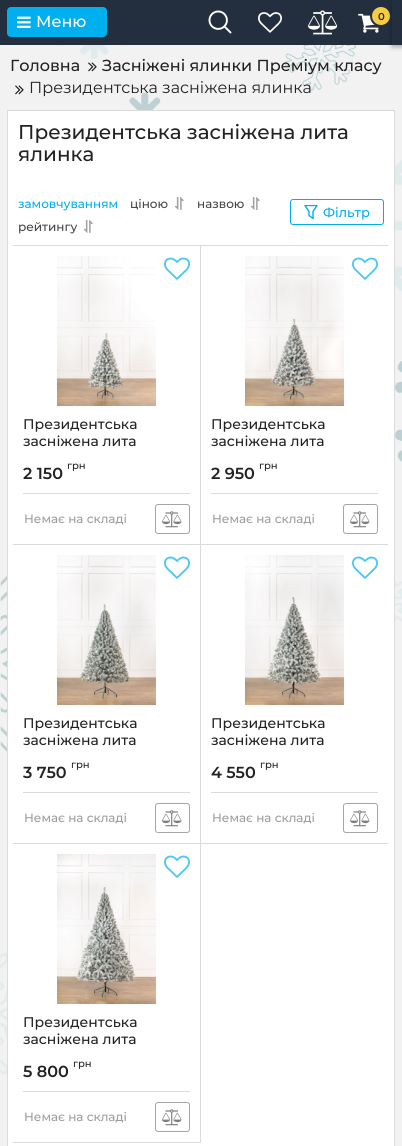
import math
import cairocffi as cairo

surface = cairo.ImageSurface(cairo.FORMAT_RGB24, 402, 1146)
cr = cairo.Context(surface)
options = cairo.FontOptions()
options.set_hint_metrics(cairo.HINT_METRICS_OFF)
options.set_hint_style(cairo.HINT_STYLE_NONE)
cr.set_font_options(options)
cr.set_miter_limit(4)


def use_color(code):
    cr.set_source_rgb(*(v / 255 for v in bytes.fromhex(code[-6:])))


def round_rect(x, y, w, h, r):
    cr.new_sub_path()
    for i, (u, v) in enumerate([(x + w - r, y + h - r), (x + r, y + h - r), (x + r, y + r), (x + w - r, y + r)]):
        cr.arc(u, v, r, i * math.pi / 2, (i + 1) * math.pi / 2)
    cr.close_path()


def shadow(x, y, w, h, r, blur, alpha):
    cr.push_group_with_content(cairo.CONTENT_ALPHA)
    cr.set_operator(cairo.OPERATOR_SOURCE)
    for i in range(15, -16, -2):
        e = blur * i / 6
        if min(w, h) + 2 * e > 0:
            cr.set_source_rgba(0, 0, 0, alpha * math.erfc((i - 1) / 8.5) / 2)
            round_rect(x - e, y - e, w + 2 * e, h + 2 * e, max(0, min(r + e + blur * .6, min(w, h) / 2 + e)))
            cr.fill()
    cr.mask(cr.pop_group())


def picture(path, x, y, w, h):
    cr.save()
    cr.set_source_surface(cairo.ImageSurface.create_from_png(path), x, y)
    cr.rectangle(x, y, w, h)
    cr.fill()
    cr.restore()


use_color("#f2f2f2")
cr.paint()
picture("img1.png", 0, 45, 402, 1030)
use_color("#232f3e")
cr.rectangle(0, 0, 402, 45)
cr.fill()
use_color("#00afee")
round_rect(7, 7, 100, 30, 4)
cr.fill()
picture("img2.png", 17, 16, 14, 12)
cr.select_font_face("Montserrat Medium")
cr.set_font_size(16)
use_color("#ffffff")
cr.move_to(36, 27)
cr.show_text("Меню")
picture("img3.png", 208, 10, 24, 24)
picture("img4.png", 258, 12, 24, 21)
picture("img5.png", 308, 10, 30, 25)
picture("img6.png", 358, 13, 21, 20)
use_color("#f5cc43")
cr.arc(381, 16, 10, 0, 2 * math.pi)
cr.fill_preserve()
use_color("#232f3e")
cr.stroke()
cr.select_font_face("Montserrat SemiBold")
cr.set_font_size(10)
use_color("#222222")
cr.move_to(378, 20)
cr.show_text("0")
cr.select_font_face("Montserrat Medium")
cr.set_font_size(16)
cr.move_to(10, 71)
cr.show_text("Головна")
picture("img7.png", 88, 62, 9, 10)
cr.move_to(102, 71)
cr.show_text("Засніжені ялинки Преміум класу")
picture("img7.png", 15, 85, 9, 10)
cr.select_font_face("Montserrat")
cr.move_to(29, 93)
cr.show_text("Президентська засніжена ялинка")
cr.save()
cr.set_fill_rule(cairo.FILL_RULE_EVEN_ODD)
cr.new_path()
cr.move_to(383, 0)
cr.line_to(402, 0)
cr.line_to(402, 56)
cr.line_to(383, 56)
cr.close_path()
cr.move_to(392, 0)
cr.line_to(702, 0)
cr.line_to(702, 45)
cr.line_to(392, 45)
cr.close_path()
cr.clip()
use_color("#000000")
shadow(392, 2, 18, 45, 0, 2.5, 0.3)
cr.restore()
use_color("#ffffff")
cr.rectangle(7.5, 110.5, 387, 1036)
cr.fill_preserve()
use_color("#dbdbdb")
cr.set_line_width(1)
cr.stroke()
cr.select_font_face("Montserrat Medium")
cr.set_font_size(20)
use_color("#222222")
cr.move_to(18, 139)
cr.show_text("Президентська засніжена лита")
cr.move_to(18, 161)
cr.show_text("ялинка")
cr.set_font_size(12)
use_color("#00afee")
cr.move_to(18, 208)
cr.show_text("замовчуванням")
use_color("#454545")
cr.move_to(130, 208)
cr.show_text("ціною")
picture("img8.png", 174, 197, 10, 13)
cr.move_to(197, 208)
cr.show_text("назвою")
picture("img8.png", 250, 197, 10, 13)
cr.move_to(18, 231)
cr.show_text("рейтингу")
picture("img8.png", 83, 220, 10, 13)
round_rect(290.5, 199.5, 93, 25, 2.5)
use_color("#00afee")
cr.stroke()
cr.save()
cr.rectangle(304, 205, 14, 14)
cr.clip()
cr.new_path()
cr.move_to(305, 205.5)
cr.line_to(317, 205.5)
cr.line_to(313, 211.5)
cr.line_to(313, 218.5)
cr.line_to(309, 215.5)
cr.line_to(309, 211.5)
cr.close_path()
cr.set_line_width(1.4)
cr.set_line_cap(cairo.LINE_CAP_ROUND)
cr.set_line_join(cairo.LINE_JOIN_ROUND)
cr.stroke()
cr.restore()
cr.set_font_size(13)
cr.move_to(323, 217)
cr.show_text("Фільтр")
use_color("#dbdbdb")
cr.rectangle(13, 245, 376, 1)
cr.fill()
cr.rectangle(200, 245, 1, 300)
cr.fill()
picture("img9.png", 57, 256, 99, 150)
picture("img10.png", 164, 257, 26, 23)
cr.set_font_size(14)
use_color("#222222")
cr.move_to(23, 429)
cr.show_text("Президентська")
cr.move_to(23, 446)
cr.show_text("засніжена лита")
cr.select_font_face("Montserrat SemiBold")
cr.set_font_size(16)
cr.move_to(23, 479)
cr.show_text("2 150")
cr.select_font_face("Montserrat Medium")
cr.set_font_size(10)
cr.move_to(67, 469)
cr.show_text("грн")
use_color("#dbdbdb")
cr.rectangle(23, 493, 167, 1)
cr.fill()
cr.set_font_size(12)
use_color("#9c9c9c")
cr.move_to(24, 523)
cr.show_text("Немає на складі")
round_rect(155.5, 504.5, 34, 29, 2.5)
use_color("#a5a5a5")
cr.stroke()
picture("img11.png", 162, 511, 20, 17)
picture("img12.png", 245, 256, 99, 150)
picture("img10.png", 352, 257, 26, 23)
cr.set_font_size(14)
use_color("#222222")
cr.move_to(211, 429)
cr.show_text("Президентська")
cr.move_to(211, 446)
cr.show_text("засніжена лита")
cr.select_font_face("Montserrat SemiBold")
cr.set_font_size(16)
cr.move_to(211, 479)
cr.show_text("2 950")
cr.select_font_face("Montserrat Medium")
cr.set_font_size(10)
cr.move_to(259, 469)
cr.show_text("грн")
use_color("#dbdbdb")
cr.rectangle(211, 493, 167, 1)
cr.fill()
cr.set_font_size(12)
use_color("#9c9c9c")
cr.move_to(212, 523)
cr.show_text("Немає на складі")
round_rect(343.5, 504.5, 34, 29, 2.5)
use_color("#a5a5a5")
cr.stroke()
picture("img11.png", 350, 511, 20, 17)
use_color("#dbdbdb")
cr.rectangle(13, 544, 376, 1)
cr.fill()
cr.rectangle(200, 544, 1, 300)
cr.fill()
cr.rectangle(13, 843, 376, 1)
cr.fill()
use_color("#ffffff")
cr.rectangle(388, 245, 1, 599)
cr.fill()
picture("img13.png", 57, 555, 99, 150)
picture("img10.png", 164, 556, 26, 23)
cr.set_font_size(14)
use_color("#222222")
cr.move_to(23, 728)
cr.show_text("Президентська")
cr.move_to(23, 745)
cr.show_text("засніжена лита")
cr.select_font_face("Montserrat SemiBold")
cr.set_font_size(16)
cr.move_to(23, 778)
cr.show_text("3 750")
cr.select_font_face("Montserrat Medium")
cr.set_font_size(10)
cr.move_to(71, 768)
cr.show_text("грн")
use_color("#dbdbdb")
cr.rectangle(23, 792, 167, 1)
cr.fill()
cr.set_font_size(12)
use_color("#9c9c9c")
cr.move_to(24, 822)
cr.show_text("Немає на складі")
round_rect(155.5, 803.5, 34, 29, 2.5)
use_color("#a5a5a5")
cr.stroke()
picture("img11.png", 162, 810, 20, 17)
picture("img14.png", 245, 555, 99, 150)
picture("img10.png", 352, 556, 26, 23)
cr.set_font_size(14)
use_color("#222222")
cr.move_to(211, 728)
cr.show_text("Президентська")
cr.move_to(211, 745)
cr.show_text("засніжена лита")
cr.select_font_face("Montserrat SemiBold")
cr.set_font_size(16)
cr.move_to(211, 778)
cr.show_text("4 550")
cr.select_font_face("Montserrat Medium")
cr.set_font_size(10)
cr.move_to(260, 768)
cr.show_text("грн")
use_color("#dbdbdb")
cr.rectangle(211, 792, 167, 1)
cr.fill()
cr.set_font_size(12)
use_color("#9c9c9c")
cr.move_to(212, 822)
cr.show_text("Немає на складі")
round_rect(343.5, 803.5, 34, 29, 2.5)
use_color("#a5a5a5")
cr.stroke()
picture("img11.png", 350, 810, 20, 17)
use_color("#dbdbdb")
cr.rectangle(200, 843, 1, 300)
cr.fill()
cr.rectangle(13, 1142, 188, 1)
cr.fill()
picture("img15.png", 57, 854, 99, 150)
picture("img10.png", 164, 855, 26, 23)
cr.set_font_size(14)
use_color("#222222")
cr.move_to(23, 1027)
cr.show_text("Президентська")
cr.move_to(23, 1044)
cr.show_text("засніжена лита")
cr.select_font_face("Montserrat SemiBold")
cr.set_font_size(16)
cr.move_to(23, 1077)
cr.show_text("5 800")
cr.select_font_face("Montserrat Medium")
cr.set_font_size(10)
cr.move_to(73, 1067)
cr.show_text("грн")
use_color("#dbdbdb")
cr.rectangle(23, 1091, 167, 1)
cr.fill()
cr.set_font_size(12)
use_color("#9c9c9c")
cr.move_to(24, 1121)
cr.show_text("Немає на складі")
round_rect(155.5, 1102.5, 34, 29, 2.5)
use_color("#a5a5a5")
cr.stroke()
picture("img11.png", 162, 1109, 20, 17)
surface.write_to_png("result.png")
